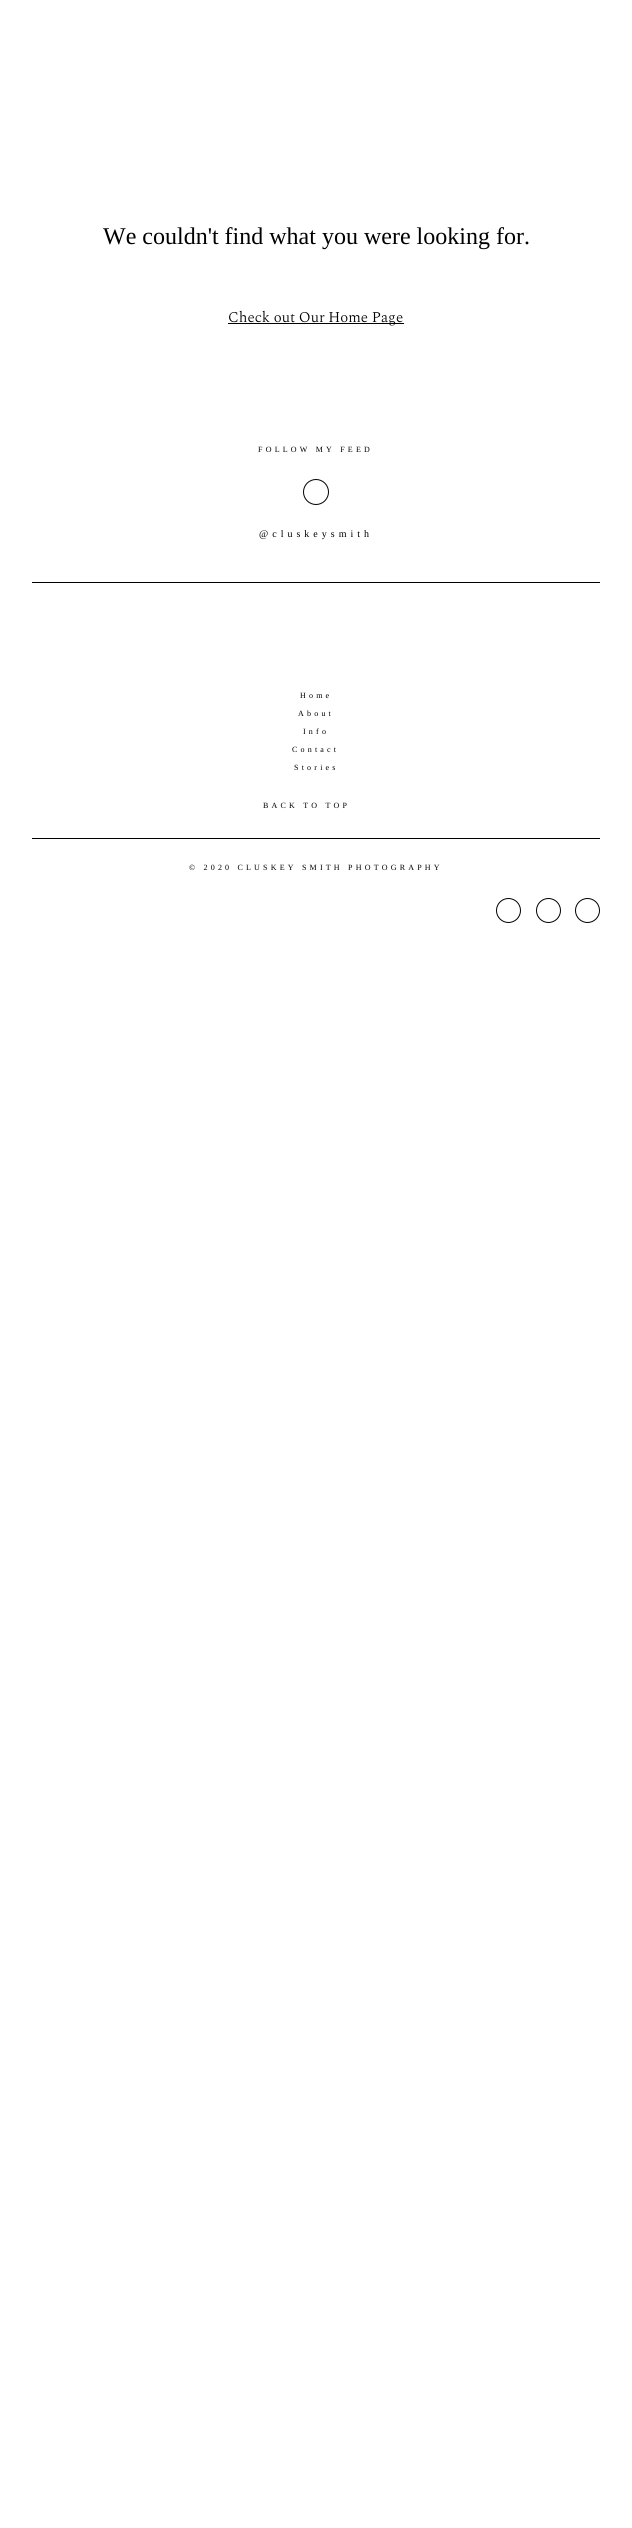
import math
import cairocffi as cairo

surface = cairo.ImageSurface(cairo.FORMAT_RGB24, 632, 2528)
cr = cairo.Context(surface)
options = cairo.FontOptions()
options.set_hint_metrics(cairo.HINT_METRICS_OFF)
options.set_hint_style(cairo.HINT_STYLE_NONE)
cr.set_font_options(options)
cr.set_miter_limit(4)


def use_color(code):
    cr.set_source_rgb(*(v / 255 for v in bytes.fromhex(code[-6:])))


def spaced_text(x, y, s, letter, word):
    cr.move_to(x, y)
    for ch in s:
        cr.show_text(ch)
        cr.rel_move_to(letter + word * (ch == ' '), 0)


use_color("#ffffff")
cr.paint()
cr.select_font_face("Liberation Serif")
cr.set_font_size(24)
use_color("#000000")
cr.move_to(103, 244)
cr.show_text("We couldn't find what you were looking for.")
cr.rectangle(228, 323, 176, 1)
cr.fill()
cr.select_font_face("Spectral Light")
cr.set_font_size(15)
cr.move_to(228, 322)
cr.show_text("Check out Our Home Page")
cr.select_font_face("Liberation Serif")
cr.set_font_size(8)
spaced_text(258, 452, "FOLLOW MY FEED", 3.2, 0)
cr.new_path()
cr.arc(316, 492, 12.5, 0, 2 * math.pi)
cr.set_line_width(1)
cr.stroke()
cr.set_font_size(10)
spaced_text(259, 537, "@cluskeysmith", 4, 0)
cr.rectangle(32, 582, 568, 1)
cr.fill()
cr.rectangle(32, 838, 568, 1)
cr.fill()
cr.set_font_size(8)
spaced_text(300, 698, "Home", 3.2, 0)
spaced_text(298, 716, "About", 3.2, 0)
spaced_text(303, 734, "Info", 3.2, 0)
spaced_text(292, 752, "Contact", 3.2, 0)
spaced_text(294, 770, "Stories", 3.2, 0)
spaced_text(263, 808, "BACK TO TOP", 3.2, 0)
spaced_text(189, 870, "© 2020 CLUSKEY SMITH PHOTOGRAPHY", 3.2, 0)
cr.new_path()
cr.arc(508.5, 910.5, 12, 0, 2 * math.pi)
cr.stroke()
cr.arc(548.5, 910.5, 12, 0, 2 * math.pi)
cr.stroke()
cr.arc(587.5, 910.5, 12, 0, 2 * math.pi)
cr.stroke()
surface.write_to_png("result.png")
